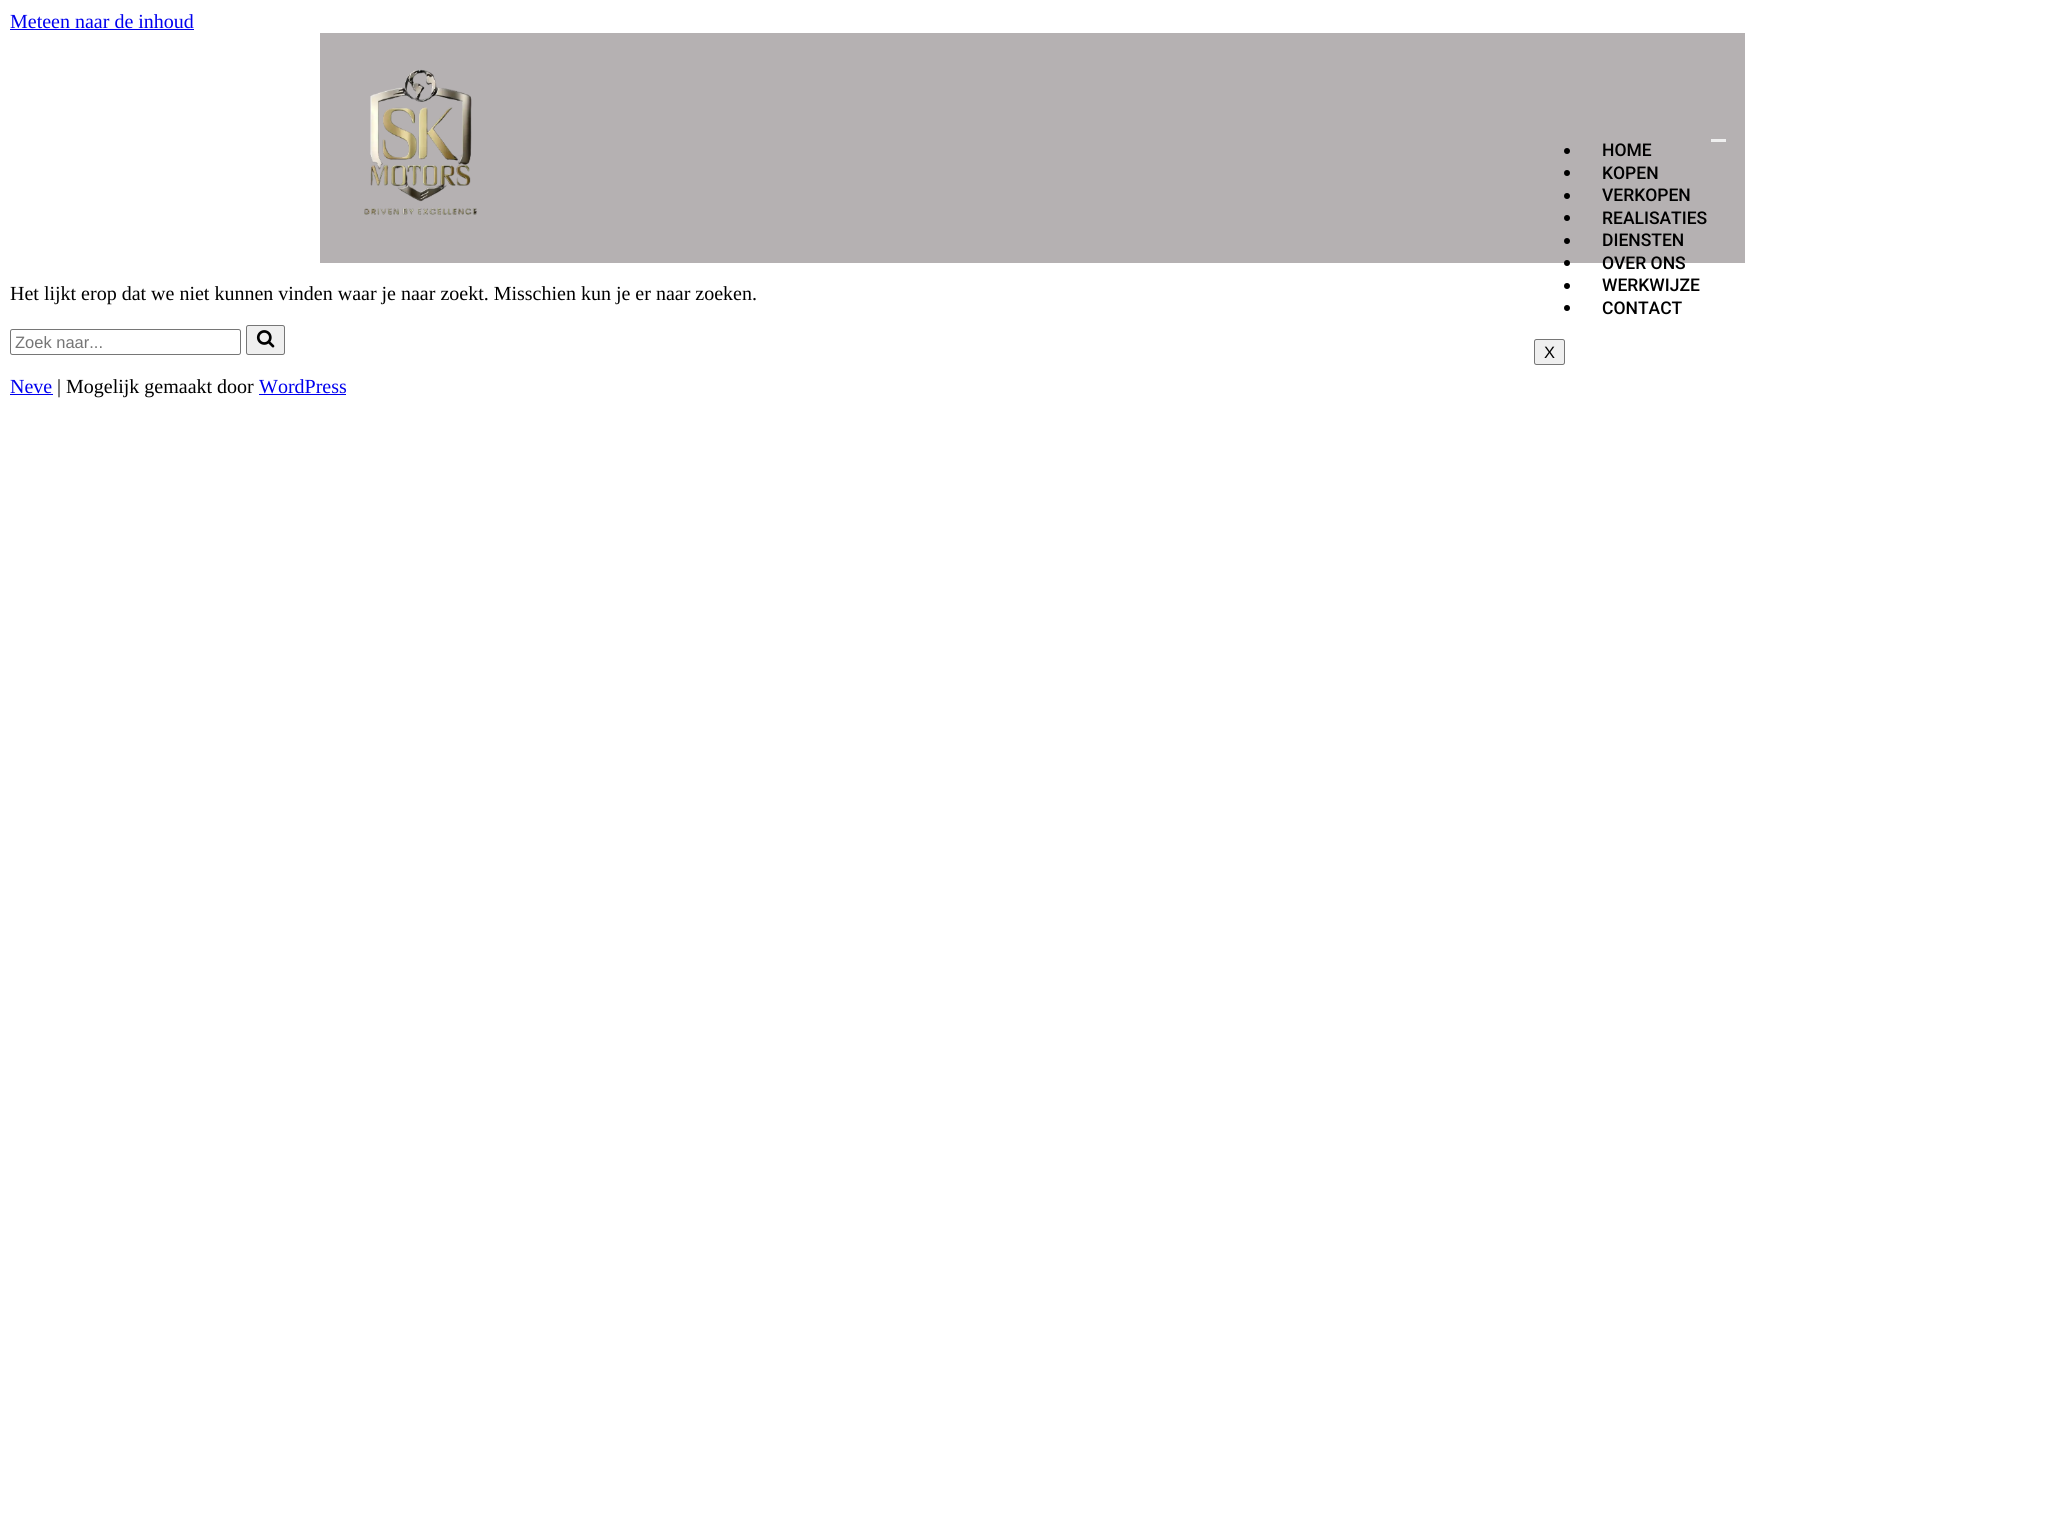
import math
import cairocffi as cairo

surface = cairo.ImageSurface(cairo.FORMAT_RGB24, 2064, 1521)
cr = cairo.Context(surface)
options = cairo.FontOptions()
options.set_hint_metrics(cairo.HINT_METRICS_OFF)
options.set_hint_style(cairo.HINT_STYLE_NONE)
cr.set_font_options(options)
cr.set_miter_limit(4)


def use_color(code):
    cr.set_source_rgb(*(v / 255 for v in bytes.fromhex(code[-6:])))


def round_rect(x, y, w, h, r):
    cr.new_sub_path()
    for i, (u, v) in enumerate([(x + w - r, y + h - r), (x + r, y + h - r), (x + r, y + r), (x + w - r, y + r)]):
        cr.arc(u, v, r, i * math.pi / 2, (i + 1) * math.pi / 2)
    cr.close_path()


def picture(path, x, y, w, h):
    cr.save()
    cr.set_source_surface(cairo.ImageSurface.create_from_png(path), x, y)
    cr.rectangle(x, y, w, h)
    cr.fill()
    cr.restore()


use_color("#ffffff")
cr.paint()
cr.select_font_face("Liberation Serif")
cr.set_font_size(20)
use_color("#0000ee")
cr.move_to(10, 28)
cr.show_text("Meteen naar de inhoud")
cr.rectangle(10, 29, 184, 1)
cr.fill()
use_color("#b5b1b2")
cr.rectangle(320, 33, 1425, 230)
cr.fill()
picture("img1.png", 364, 69, 113, 146)
use_color("#efefef")
cr.rectangle(1711, 139, 15, 3)
cr.fill()
use_color("#000000")
cr.arc(1567, 151, 3, 0, 2 * math.pi)
cr.fill()
cr.select_font_face("Roboto Medium")
cr.set_font_size(17.5)
cr.move_to(1602, 156)
cr.show_text("HOME")
cr.new_path()
cr.arc(1567, 173, 3, 0, 2 * math.pi)
cr.fill()
cr.move_to(1602, 179)
cr.show_text("KOPEN")
cr.new_path()
cr.arc(1567, 196, 3, 0, 2 * math.pi)
cr.fill()
cr.move_to(1602, 201)
cr.show_text("VERKOPEN")
cr.new_path()
cr.arc(1567, 218, 3, 0, 2 * math.pi)
cr.fill()
cr.move_to(1602, 224)
cr.show_text("REALISATIES")
cr.new_path()
cr.arc(1567, 241, 3, 0, 2 * math.pi)
cr.fill()
cr.move_to(1602, 246)
cr.show_text("DIENSTEN")
cr.new_path()
cr.arc(1567, 263, 3, 0, 2 * math.pi)
cr.fill()
cr.move_to(1602, 269)
cr.show_text("OVER ONS")
cr.new_path()
cr.arc(1567, 286, 3, 0, 2 * math.pi)
cr.fill()
cr.move_to(1602, 291)
cr.show_text("WERKWIJZE")
cr.new_path()
cr.arc(1567, 308, 3, 0, 2 * math.pi)
cr.fill()
cr.move_to(1602, 314)
cr.show_text("CONTACT")
use_color("#efefef")
round_rect(1534.5, 339.5, 30, 25, 2)
cr.fill_preserve()
use_color("#767676")
cr.set_line_width(1)
cr.stroke()
cr.select_font_face("Liberation Sans")
cr.set_font_size(16.5)
use_color("#000000")
cr.move_to(1544, 358)
cr.show_text("X")
cr.select_font_face("Liberation Serif")
cr.set_font_size(20)
cr.move_to(10, 300)
cr.show_text("Het lijkt erop dat we niet kunnen vinden waar je naar zoekt. Misschien kun je er naar zoeken.")
round_rect(10.5, 329.5, 230, 25, 2)
use_color("#767676")
cr.stroke()
cr.select_font_face("Liberation Sans")
cr.set_font_size(16.5)
use_color("#757575")
cr.move_to(15, 348)
cr.show_text("Zoek naar...")
use_color("#efefef")
round_rect(246.5, 325.5, 38, 29, 2)
cr.fill_preserve()
use_color("#767676")
cr.stroke()
picture("img2.png", 256, 330, 19, 18)
cr.select_font_face("Liberation Serif")
cr.set_font_size(20)
use_color("#0000ee")
cr.move_to(10, 393)
cr.show_text("Neve")
cr.rectangle(10, 394, 43, 1)
cr.fill()
use_color("#000000")
cr.move_to(57, 393)
cr.show_text("| Mogelijk gemaakt door")
use_color("#0000ee")
cr.move_to(259, 393)
cr.show_text("WordPress")
cr.rectangle(259, 394, 87, 1)
cr.fill()
surface.write_to_png("result.png")
